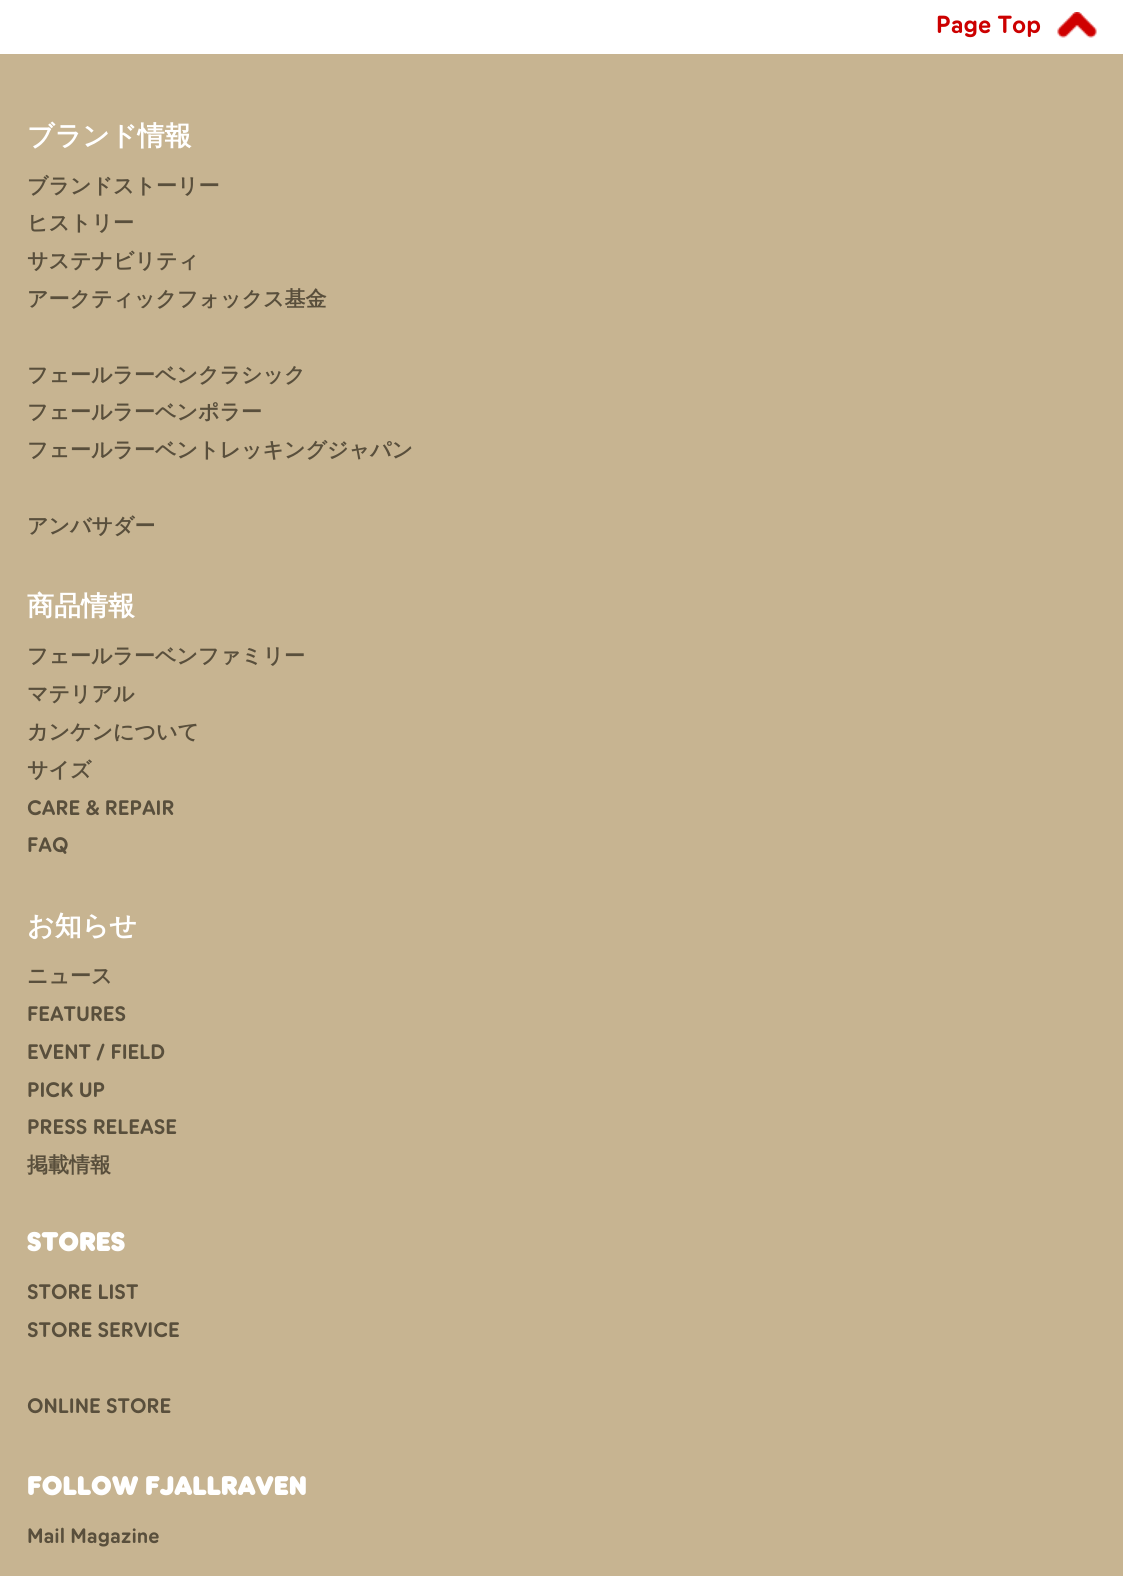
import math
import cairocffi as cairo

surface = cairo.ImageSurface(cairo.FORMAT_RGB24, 1123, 1576)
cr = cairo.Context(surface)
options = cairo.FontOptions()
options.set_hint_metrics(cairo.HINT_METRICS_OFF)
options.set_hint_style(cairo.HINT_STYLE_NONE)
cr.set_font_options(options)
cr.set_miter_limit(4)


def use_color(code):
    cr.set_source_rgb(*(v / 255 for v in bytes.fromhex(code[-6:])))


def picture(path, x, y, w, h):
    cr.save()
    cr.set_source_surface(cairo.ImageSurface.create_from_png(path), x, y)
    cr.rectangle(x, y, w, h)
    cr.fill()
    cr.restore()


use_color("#ffffff")
cr.paint()
cr.select_font_face("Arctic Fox", cairo.FONT_SLANT_NORMAL, cairo.FONT_WEIGHT_BOLD)
cr.set_font_size(24.75)
use_color("#cc0000")
cr.move_to(936, 33)
cr.show_text("Page Top")
picture("img1.png", 1057, 12, 40, 26)
use_color("#c7b491")
cr.rectangle(0, 54, 1123, 1522)
cr.fill()
cr.select_font_face("WenQuanYi Zen Hei", cairo.FONT_SLANT_NORMAL, cairo.FONT_WEIGHT_BOLD)
cr.set_font_size(27)
use_color("#ffffff")
cr.move_to(27, 145)
cr.show_text("ブランド情報")
cr.set_font_size(21)
use_color("#594f3c")
cr.move_to(27, 193)
cr.show_text("ブランドストーリー")
cr.move_to(27, 230)
cr.show_text("ヒストリー")
cr.move_to(27, 268)
cr.show_text("サステナビリティ")
cr.move_to(27, 306)
cr.show_text("アークティックフォックス基金")
cr.move_to(27, 382)
cr.show_text("フェールラーベンクラシック")
cr.move_to(27, 419)
cr.show_text("フェールラーベンポラー")
cr.move_to(27, 457)
cr.show_text("フェールラーベントレッキングジャパン")
cr.move_to(27, 533)
cr.show_text("アンバサダー")
cr.set_font_size(27)
use_color("#ffffff")
cr.move_to(27, 615)
cr.show_text("商品情報")
cr.set_font_size(21)
use_color("#594f3c")
cr.move_to(27, 663)
cr.show_text("フェールラーベンファミリー")
cr.move_to(27, 701)
cr.show_text("マテリアル")
cr.move_to(27, 739)
cr.show_text("カンケンについて")
cr.move_to(27, 777)
cr.show_text("サイズ")
cr.select_font_face("Arctic Fox", cairo.FONT_SLANT_NORMAL, cairo.FONT_WEIGHT_BOLD)
cr.move_to(27, 815)
cr.show_text("CARE & REPAIR")
cr.move_to(27, 852)
cr.show_text("FAQ")
cr.select_font_face("WenQuanYi Zen Hei", cairo.FONT_SLANT_NORMAL, cairo.FONT_WEIGHT_BOLD)
cr.set_font_size(27)
use_color("#ffffff")
cr.move_to(27, 935)
cr.show_text("お知らせ")
cr.set_font_size(21)
use_color("#594f3c")
cr.move_to(27, 983)
cr.show_text("ニュース")
cr.select_font_face("Arctic Fox", cairo.FONT_SLANT_NORMAL, cairo.FONT_WEIGHT_BOLD)
cr.move_to(27, 1021)
cr.show_text("FEATURES")
cr.move_to(27, 1059)
cr.show_text("EVENT / FIELD")
cr.move_to(27, 1097)
cr.show_text("PICK UP")
cr.move_to(27, 1134)
cr.show_text("PRESS RELEASE")
cr.select_font_face("WenQuanYi Zen Hei", cairo.FONT_SLANT_NORMAL, cairo.FONT_WEIGHT_BOLD)
cr.move_to(27, 1172)
cr.show_text("掲載情報")
cr.select_font_face("Arctic Fox Black")
cr.set_font_size(27)
use_color("#ffffff")
cr.move_to(27, 1251)
cr.show_text("STORES")
cr.select_font_face("Arctic Fox", cairo.FONT_SLANT_NORMAL, cairo.FONT_WEIGHT_BOLD)
cr.set_font_size(21)
use_color("#594f3c")
cr.move_to(27, 1299)
cr.show_text("STORE LIST")
cr.move_to(27, 1337)
cr.show_text("STORE SERVICE")
cr.move_to(27, 1413)
cr.show_text("ONLINE STORE")
cr.select_font_face("Arctic Fox Black")
cr.set_font_size(27)
use_color("#ffffff")
cr.move_to(27, 1495)
cr.show_text("FOLLOW FJALLRAVEN")
cr.select_font_face("Arctic Fox", cairo.FONT_SLANT_NORMAL, cairo.FONT_WEIGHT_BOLD)
cr.set_font_size(21)
use_color("#594f3c")
cr.move_to(27, 1543)
cr.show_text("Mail Magazine")
surface.write_to_png("result.png")
